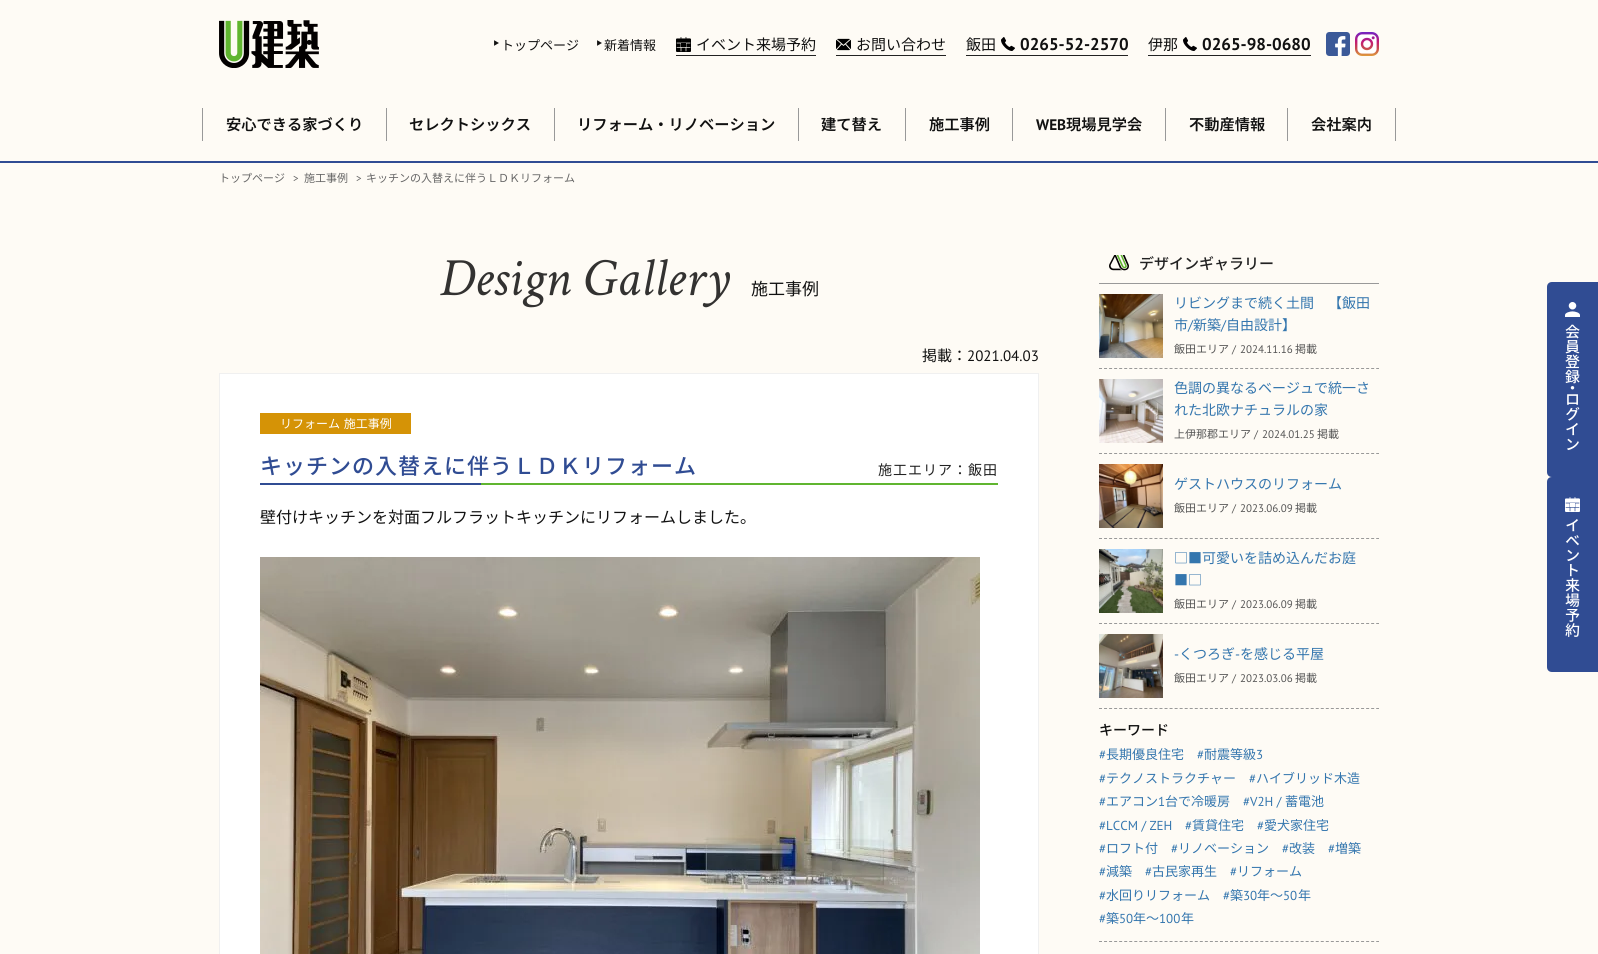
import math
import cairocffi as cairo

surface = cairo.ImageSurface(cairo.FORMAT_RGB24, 1598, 954)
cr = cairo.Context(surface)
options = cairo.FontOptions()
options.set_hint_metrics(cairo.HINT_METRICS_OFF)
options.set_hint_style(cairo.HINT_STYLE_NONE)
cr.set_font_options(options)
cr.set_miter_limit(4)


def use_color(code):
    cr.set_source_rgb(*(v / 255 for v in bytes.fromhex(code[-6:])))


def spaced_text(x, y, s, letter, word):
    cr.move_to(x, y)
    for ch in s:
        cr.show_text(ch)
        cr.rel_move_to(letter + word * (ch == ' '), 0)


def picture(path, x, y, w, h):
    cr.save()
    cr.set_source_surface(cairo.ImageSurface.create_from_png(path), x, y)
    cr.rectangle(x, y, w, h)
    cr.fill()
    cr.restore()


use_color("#fefbf5")
cr.paint()
picture("img1.png", 219, 20, 100, 48)
cr.select_font_face("Noto Sans JP")
cr.set_font_size(6)
use_color("#111111")
cr.save()
cr.translate(494, 40)
cr.rotate(90 * math.pi / 180)
spaced_text(0, 0, "▲", 4, 0)
cr.restore()
cr.set_font_size(13)
cr.move_to(501, 50)
cr.show_text("トップページ")
cr.set_font_size(6)
cr.save()
cr.translate(597, 40)
cr.rotate(90 * math.pi / 180)
spaced_text(0, 0, "▲", 4, 0)
cr.restore()
cr.set_font_size(13)
cr.move_to(604, 50)
cr.show_text("新着情報")
use_color("#222222")
cr.rectangle(676, 55, 140, 1)
cr.fill()
picture("img2.png", 676, 37, 15, 15)
cr.set_font_size(15)
use_color("#111111")
cr.move_to(696, 50)
cr.show_text("イベント来場予約")
use_color("#222222")
cr.rectangle(836, 55, 110, 1)
cr.fill()
picture("img3.png", 836, 38, 15, 13)
use_color("#111111")
cr.move_to(856, 50)
cr.show_text("お問い合わせ")
use_color("#222222")
cr.rectangle(966, 55, 162, 1)
cr.fill()
use_color("#111111")
cr.move_to(966, 50)
cr.show_text("飯田")
picture("img4.png", 1001, 37, 14, 14)
cr.select_font_face("PT Sans", cairo.FONT_SLANT_NORMAL, cairo.FONT_WEIGHT_BOLD)
cr.set_font_size(17)
cr.move_to(1020, 50)
cr.show_text("0265-52-2570")
use_color("#222222")
cr.rectangle(1148, 55, 163, 1)
cr.fill()
cr.select_font_face("Noto Sans JP")
cr.set_font_size(15)
use_color("#111111")
cr.move_to(1148, 50)
cr.show_text("伊那")
picture("img4.png", 1183, 37, 14, 14)
cr.select_font_face("PT Sans", cairo.FONT_SLANT_NORMAL, cairo.FONT_WEIGHT_BOLD)
cr.set_font_size(17)
cr.move_to(1202, 50)
cr.show_text("0265-98-0680")
picture("img5.png", 1326, 32, 24, 24)
picture("img6.png", 1355, 32, 24, 24)
use_color("#304c93")
cr.rectangle(0, 161, 1598, 2)
cr.fill()
use_color("#999999")
cr.rectangle(202, 108, 1, 33)
cr.fill()
cr.select_font_face("Noto Sans JP SemiBold")
cr.set_font_size(15.25)
use_color("#111111")
cr.move_to(226, 130)
cr.show_text("安心できる家づくり")
use_color("#999999")
cr.rectangle(386, 108, 1, 33)
cr.fill()
use_color("#111111")
cr.move_to(409, 130)
cr.show_text("セレクトシックス")
use_color("#999999")
cr.rectangle(554, 108, 1, 33)
cr.fill()
use_color("#111111")
cr.move_to(577, 130)
cr.show_text("リフォーム・リノベーション")
use_color("#999999")
cr.rectangle(798, 108, 1, 33)
cr.fill()
use_color("#111111")
cr.move_to(821, 130)
cr.show_text("建て替え")
use_color("#999999")
cr.rectangle(905, 108, 1, 33)
cr.fill()
use_color("#111111")
cr.move_to(929, 130)
cr.show_text("施工事例")
use_color("#999999")
cr.rectangle(1012, 108, 1, 33)
cr.fill()
cr.select_font_face("PT Sans", cairo.FONT_SLANT_NORMAL, cairo.FONT_WEIGHT_BOLD)
use_color("#111111")
cr.move_to(1036, 130)
cr.show_text("WEB")
cr.select_font_face("Noto Sans JP SemiBold")
cr.move_to(1066, 130)
cr.show_text("現場見学会")
use_color("#999999")
cr.rectangle(1165, 108, 1, 33)
cr.fill()
use_color("#111111")
cr.move_to(1189, 130)
cr.show_text("不動産情報")
use_color("#999999")
cr.rectangle(1395, 108, 1, 33)
cr.fill()
cr.rectangle(1287, 108, 1, 33)
cr.fill()
use_color("#111111")
cr.move_to(1311, 130)
cr.show_text("会社案内")
cr.select_font_face("Noto Sans JP")
cr.set_font_size(11)
use_color("#666666")
cr.move_to(219, 182)
cr.show_text("トップページ")
cr.select_font_face("PT Sans")
spaced_text(293, 182, ">", -1, 0)
cr.select_font_face("Noto Sans JP")
cr.move_to(304, 182)
cr.show_text("施工事例")
cr.select_font_face("PT Sans")
spaced_text(356, 182, ">", -1, 0)
cr.select_font_face("Noto Sans JP")
cr.move_to(366, 182)
cr.show_text("キッチンの入替えに伴うＬＤＫリフォーム")
cr.select_font_face("Crimson Text", cairo.FONT_SLANT_ITALIC)
cr.set_font_size(54)
use_color("#333231")
cr.move_to(439, 295)
cr.show_text("Design Gallery")
cr.select_font_face("Noto Sans JP")
cr.set_font_size(17)
use_color("#111111")
cr.move_to(751, 295)
cr.show_text("施工事例")
cr.set_font_size(15)
cr.move_to(922, 361)
cr.show_text("掲載：")
cr.select_font_face("PT Sans")
cr.move_to(967, 361)
cr.show_text("2021.04.03")
use_color("#ffffff")
cr.rectangle(219.5, 373.5, 819, 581)
cr.fill_preserve()
use_color("#f0f0f0")
cr.set_line_width(1)
cr.stroke()
use_color("#d59306")
cr.rectangle(260, 413, 151, 21)
cr.fill()
cr.select_font_face("Noto Sans JP")
cr.set_font_size(12)
use_color("#ffffff")
spaced_text(280, 428, "リフォーム 施工事例", 0, 1)
cr.select_font_face("Noto Sans JP Medium")
cr.set_font_size(22)
use_color("#304c93")
spaced_text(260, 474, "キッチンの入替えに伴うＬＤＫリフォーム", 1, 0)
cr.select_font_face("Noto Sans JP")
cr.set_font_size(14)
use_color("#222222")
spaced_text(878, 475, "施工エリア：飯田", 1, 0)
use_color("#304c93")
cr.rectangle(260, 483, 221, 2)
cr.fill()
use_color("#60b530")
cr.rectangle(481, 483, 517, 2)
cr.fill()
cr.set_font_size(16)
use_color("#111111")
cr.move_to(260, 523)
cr.show_text("壁付けキッチンを対面フルフラットキッチンにリフォームしました。")
picture("img7.png", 260, 557, 720, 397)
use_color("#999999")
cr.rectangle(1099, 283, 280, 1)
cr.fill()
picture("img8.png", 1109, 255, 20, 16)
cr.select_font_face("Noto Sans JP Medium")
cr.set_font_size(15)
use_color("#222222")
cr.move_to(1139, 269)
cr.show_text("デザインギャラリー")
cr.new_path()
cr.move_to(1099, 368.5)
cr.line_to(1379, 368.5)
use_color("#999999")
cr.set_dash([3, 2.04])
cr.stroke()
picture("img9.png", 1099, 294, 64, 64)
cr.select_font_face("Noto Sans JP")
cr.set_font_size(14)
use_color("#3476ae")
cr.move_to(1174, 308)
cr.show_text("リビングまで続く土間　【飯田")
cr.move_to(1174, 330)
cr.show_text("市")
cr.select_font_face("PT Sans")
cr.move_to(1188, 330)
cr.show_text("/")
cr.select_font_face("Noto Sans JP")
cr.move_to(1193, 330)
cr.show_text("新築")
cr.select_font_face("PT Sans")
cr.move_to(1221, 330)
cr.show_text("/")
cr.select_font_face("Noto Sans JP")
cr.move_to(1226, 330)
cr.show_text("自由設計】")
cr.set_font_size(11)
use_color("#555555")
cr.move_to(1174, 353)
cr.show_text("飯田エリア")
cr.select_font_face("PT Sans")
cr.move_to(1232, 353)
cr.show_text("/")
cr.move_to(1240, 353)
cr.show_text("2024.11.16")
cr.select_font_face("Noto Sans JP")
cr.move_to(1295, 353)
cr.show_text("掲載")
cr.new_path()
cr.move_to(1099, 453.5)
cr.line_to(1379, 453.5)
use_color("#999999")
cr.stroke()
picture("img10.png", 1099, 379, 64, 64)
cr.set_font_size(14)
use_color("#3476ae")
cr.move_to(1174, 393)
cr.show_text("色調の異なるベージュで統一さ")
cr.move_to(1174, 415)
cr.show_text("れた北欧ナチュラルの家")
cr.set_font_size(11)
use_color("#555555")
cr.move_to(1174, 438)
cr.show_text("上伊那郡エリア")
cr.select_font_face("PT Sans")
cr.move_to(1254, 438)
cr.show_text("/")
cr.move_to(1262, 438)
cr.show_text("2024.01.25")
cr.select_font_face("Noto Sans JP")
cr.move_to(1317, 438)
cr.show_text("掲載")
cr.new_path()
cr.move_to(1099, 538.5)
cr.line_to(1379, 538.5)
use_color("#999999")
cr.stroke()
picture("img11.png", 1099, 464, 64, 64)
cr.set_font_size(14)
use_color("#3476ae")
cr.move_to(1174, 489)
cr.show_text("ゲストハウスのリフォーム")
cr.set_font_size(11)
use_color("#555555")
cr.move_to(1174, 512)
cr.show_text("飯田エリア")
cr.select_font_face("PT Sans")
cr.move_to(1232, 512)
cr.show_text("/")
cr.move_to(1240, 512)
cr.show_text("2023.06.09")
cr.select_font_face("Noto Sans JP")
cr.move_to(1295, 512)
cr.show_text("掲載")
cr.new_path()
cr.move_to(1099, 623.5)
cr.line_to(1379, 623.5)
use_color("#999999")
cr.stroke()
picture("img12.png", 1099, 549, 64, 64)
cr.set_font_size(14)
use_color("#3476ae")
cr.move_to(1174, 563)
cr.show_text("□■可愛いを詰め込んだお庭")
cr.move_to(1174, 585)
cr.show_text("■□")
cr.set_font_size(11)
use_color("#555555")
cr.move_to(1174, 608)
cr.show_text("飯田エリア")
cr.select_font_face("PT Sans")
cr.move_to(1232, 608)
cr.show_text("/")
cr.move_to(1240, 608)
cr.show_text("2023.06.09")
cr.select_font_face("Noto Sans JP")
cr.move_to(1295, 608)
cr.show_text("掲載")
cr.new_path()
cr.move_to(1099, 708.5)
cr.line_to(1379, 708.5)
use_color("#999999")
cr.stroke()
picture("img13.png", 1099, 634, 64, 64)
cr.select_font_face("PT Sans")
cr.set_font_size(14)
use_color("#3476ae")
cr.move_to(1174, 659)
cr.show_text("-")
cr.select_font_face("Noto Sans JP")
cr.move_to(1179, 659)
cr.show_text("くつろぎ")
cr.select_font_face("PT Sans")
cr.move_to(1235, 659)
cr.show_text("-")
cr.select_font_face("Noto Sans JP")
cr.move_to(1240, 659)
cr.show_text("を感じる平屋")
cr.set_font_size(11)
use_color("#555555")
cr.move_to(1174, 682)
cr.show_text("飯田エリア")
cr.select_font_face("PT Sans")
cr.move_to(1232, 682)
cr.show_text("/")
cr.move_to(1240, 682)
cr.show_text("2023.03.06")
cr.select_font_face("Noto Sans JP")
cr.move_to(1295, 682)
cr.show_text("掲載")
cr.new_path()
cr.move_to(1099, 941.5)
cr.line_to(1379, 941.5)
use_color("#999999")
cr.stroke()
cr.select_font_face("Noto Sans JP Medium")
cr.set_font_size(14)
use_color("#111111")
cr.move_to(1099, 735)
cr.show_text("キーワード")
cr.select_font_face("PT Sans")
cr.set_font_size(13)
use_color("#3476ae")
cr.move_to(1099, 759)
cr.show_text("#")
cr.select_font_face("Noto Sans JP")
cr.move_to(1106, 759)
cr.show_text("長期優良住宅")
cr.select_font_face("PT Sans")
cr.move_to(1197, 759)
cr.show_text("#")
cr.select_font_face("Noto Sans JP")
cr.move_to(1204, 759)
cr.show_text("耐震等級")
cr.select_font_face("PT Sans")
cr.move_to(1256, 759)
cr.show_text("3")
cr.move_to(1099, 783)
cr.show_text("#")
cr.select_font_face("Noto Sans JP")
cr.move_to(1106, 783)
cr.show_text("テクノストラクチャー")
cr.select_font_face("PT Sans")
cr.move_to(1249, 783)
cr.show_text("#")
cr.select_font_face("Noto Sans JP")
cr.move_to(1256, 783)
cr.show_text("ハイブリッド木造")
cr.select_font_face("PT Sans")
cr.move_to(1099, 806)
cr.show_text("#")
cr.select_font_face("Noto Sans JP")
cr.move_to(1106, 806)
cr.show_text("エアコン")
cr.select_font_face("PT Sans")
cr.move_to(1158, 806)
cr.show_text("1")
cr.select_font_face("Noto Sans JP")
cr.move_to(1165, 806)
cr.show_text("台で冷暖房")
cr.select_font_face("PT Sans")
cr.move_to(1243, 806)
cr.show_text("#V2H /")
cr.select_font_face("Noto Sans JP")
cr.move_to(1285, 806)
cr.show_text("蓄電池")
cr.select_font_face("PT Sans")
cr.move_to(1099, 830)
cr.show_text("#LCCM / ZEH")
cr.move_to(1185, 830)
cr.show_text("#")
cr.select_font_face("Noto Sans JP")
cr.move_to(1192, 830)
cr.show_text("賃貸住宅")
cr.select_font_face("PT Sans")
cr.move_to(1257, 830)
cr.show_text("#")
cr.select_font_face("Noto Sans JP")
cr.move_to(1264, 830)
cr.show_text("愛犬家住宅")
cr.select_font_face("PT Sans")
cr.move_to(1099, 853)
cr.show_text("#")
cr.select_font_face("Noto Sans JP")
cr.move_to(1106, 853)
cr.show_text("ロフト付")
cr.select_font_face("PT Sans")
cr.move_to(1171, 853)
cr.show_text("#")
cr.select_font_face("Noto Sans JP")
cr.move_to(1178, 853)
cr.show_text("リノベーション")
cr.select_font_face("PT Sans")
cr.move_to(1282, 853)
cr.show_text("#")
cr.select_font_face("Noto Sans JP")
cr.move_to(1289, 853)
cr.show_text("改装")
cr.select_font_face("PT Sans")
cr.move_to(1328, 853)
cr.show_text("#")
cr.select_font_face("Noto Sans JP")
cr.move_to(1335, 853)
cr.show_text("増築")
cr.select_font_face("PT Sans")
cr.move_to(1099, 876)
cr.show_text("#")
cr.select_font_face("Noto Sans JP")
cr.move_to(1106, 876)
cr.show_text("減築")
cr.select_font_face("PT Sans")
cr.move_to(1145, 876)
cr.show_text("#")
cr.select_font_face("Noto Sans JP")
cr.move_to(1152, 876)
cr.show_text("古民家再生")
cr.select_font_face("PT Sans")
cr.move_to(1230, 876)
cr.show_text("#")
cr.select_font_face("Noto Sans JP")
cr.move_to(1237, 876)
cr.show_text("リフォーム")
cr.select_font_face("PT Sans")
cr.move_to(1099, 900)
cr.show_text("#")
cr.select_font_face("Noto Sans JP")
cr.move_to(1106, 900)
cr.show_text("水回りリフォーム")
cr.select_font_face("PT Sans")
cr.move_to(1223, 900)
cr.show_text("#")
cr.select_font_face("Noto Sans JP")
cr.move_to(1230, 900)
cr.show_text("築")
cr.select_font_face("PT Sans")
cr.move_to(1243, 900)
cr.show_text("30")
cr.select_font_face("Noto Sans JP")
cr.move_to(1257, 900)
cr.show_text("年〜")
cr.select_font_face("PT Sans")
cr.move_to(1283, 900)
cr.show_text("50")
cr.select_font_face("Noto Sans JP")
cr.move_to(1298, 900)
cr.show_text("年")
cr.select_font_face("PT Sans")
cr.move_to(1099, 923)
cr.show_text("#")
cr.select_font_face("Noto Sans JP")
cr.move_to(1106, 923)
cr.show_text("築")
cr.select_font_face("PT Sans")
cr.move_to(1119, 923)
cr.show_text("50")
cr.select_font_face("Noto Sans JP")
cr.move_to(1133, 923)
cr.show_text("年〜")
cr.select_font_face("PT Sans")
cr.move_to(1159, 923)
cr.show_text("100")
cr.select_font_face("Noto Sans JP")
cr.move_to(1181, 923)
cr.show_text("年")
use_color("#304c93")
cr.new_path()
cr.move_to(1552, 282)
cr.line_to(1598, 282)
cr.line_to(1598, 477)
cr.line_to(1552, 477)
cr.curve_to(1549, 477, 1547, 475, 1547, 472)
cr.line_to(1547, 287)
cr.curve_to(1547, 284, 1549, 282, 1552, 282)
cr.close_path()
cr.fill()
picture("img14.png", 1565, 302, 15, 15)
picture("img15.png", 1565, 324, 15, 127)
cr.new_path()
cr.move_to(1552, 477)
cr.line_to(1598, 477)
cr.line_to(1598, 672)
cr.line_to(1552, 672)
cr.curve_to(1549, 672, 1547, 670, 1547, 667)
cr.line_to(1547, 482)
cr.curve_to(1547, 479, 1549, 477, 1552, 477)
cr.close_path()
cr.fill()
picture("img16.png", 1565, 497, 15, 15)
picture("img17.png", 1565, 519, 15, 118)
surface.write_to_png("result.png")
